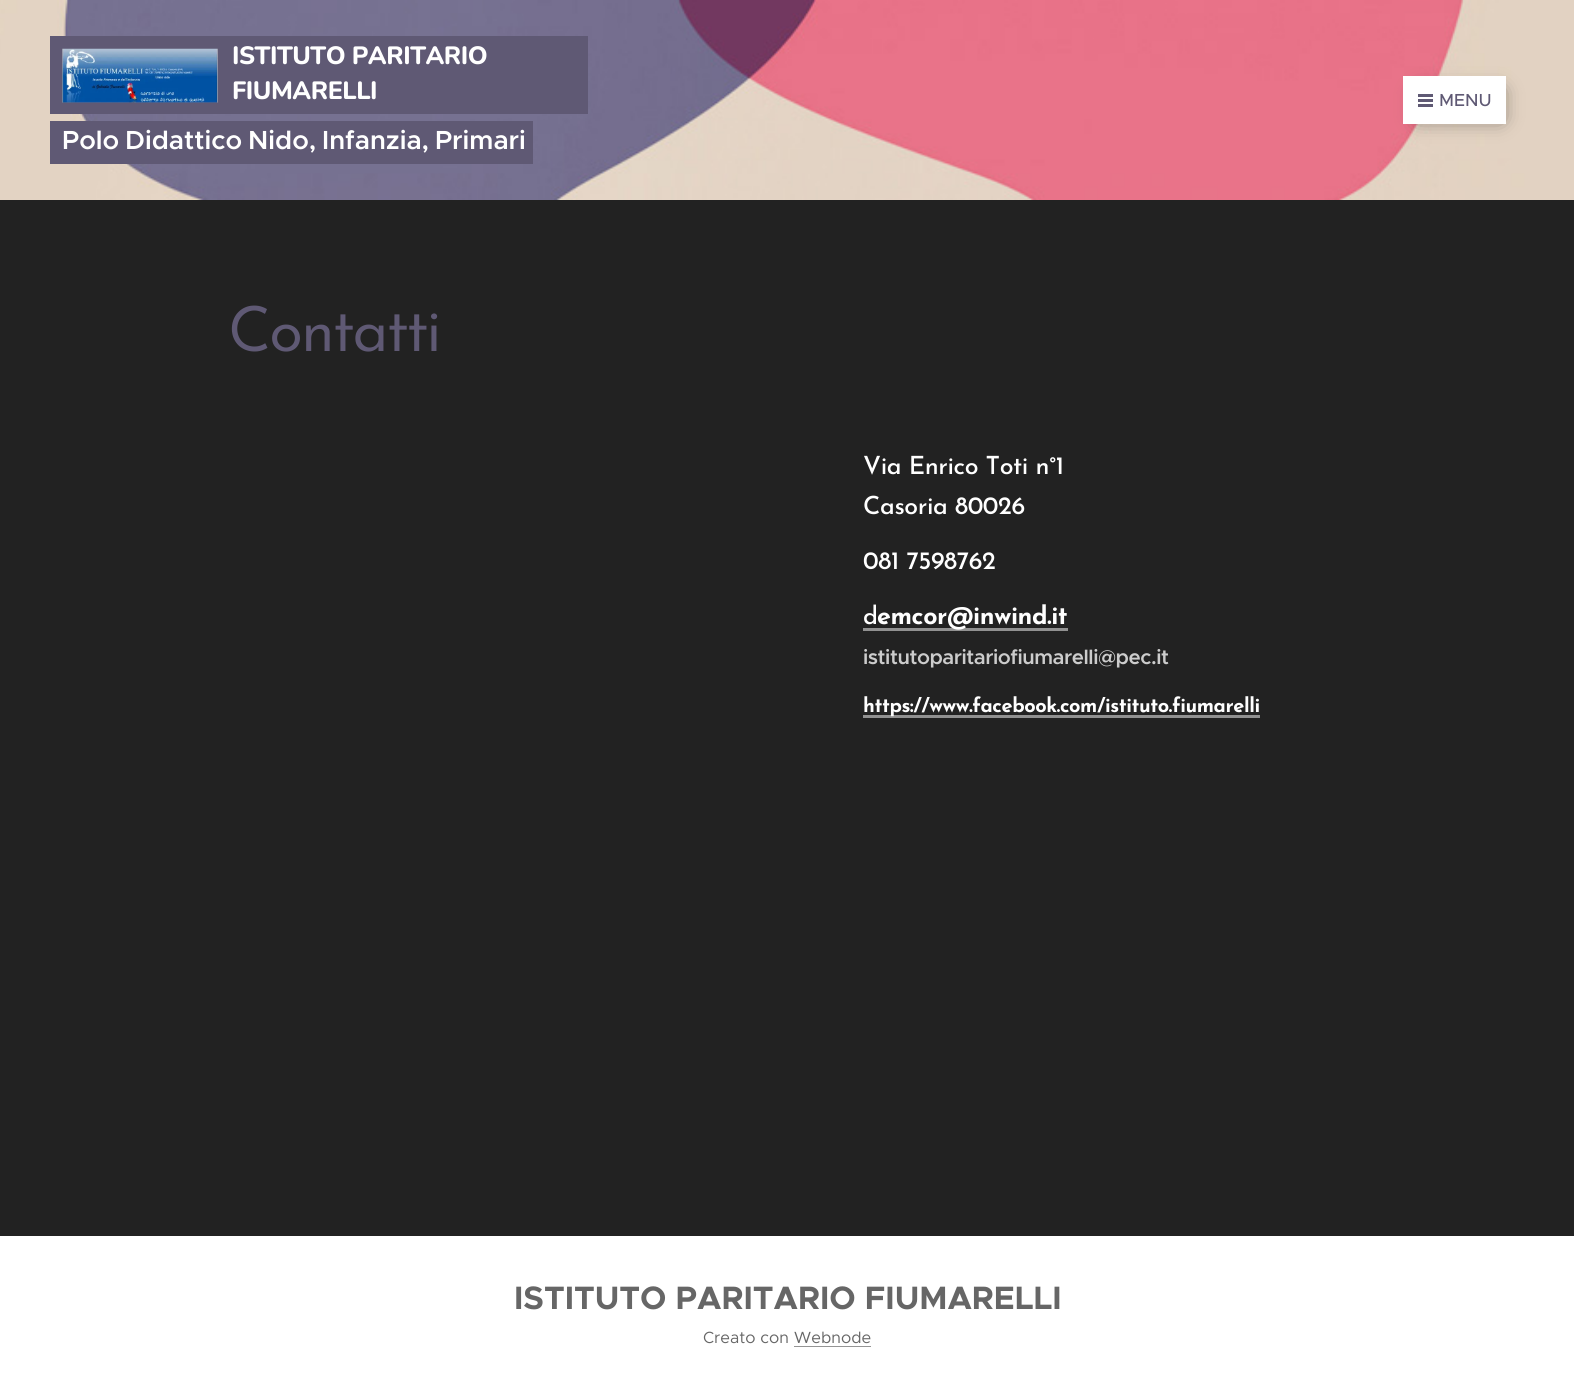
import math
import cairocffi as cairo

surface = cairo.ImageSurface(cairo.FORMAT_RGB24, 1574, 1388)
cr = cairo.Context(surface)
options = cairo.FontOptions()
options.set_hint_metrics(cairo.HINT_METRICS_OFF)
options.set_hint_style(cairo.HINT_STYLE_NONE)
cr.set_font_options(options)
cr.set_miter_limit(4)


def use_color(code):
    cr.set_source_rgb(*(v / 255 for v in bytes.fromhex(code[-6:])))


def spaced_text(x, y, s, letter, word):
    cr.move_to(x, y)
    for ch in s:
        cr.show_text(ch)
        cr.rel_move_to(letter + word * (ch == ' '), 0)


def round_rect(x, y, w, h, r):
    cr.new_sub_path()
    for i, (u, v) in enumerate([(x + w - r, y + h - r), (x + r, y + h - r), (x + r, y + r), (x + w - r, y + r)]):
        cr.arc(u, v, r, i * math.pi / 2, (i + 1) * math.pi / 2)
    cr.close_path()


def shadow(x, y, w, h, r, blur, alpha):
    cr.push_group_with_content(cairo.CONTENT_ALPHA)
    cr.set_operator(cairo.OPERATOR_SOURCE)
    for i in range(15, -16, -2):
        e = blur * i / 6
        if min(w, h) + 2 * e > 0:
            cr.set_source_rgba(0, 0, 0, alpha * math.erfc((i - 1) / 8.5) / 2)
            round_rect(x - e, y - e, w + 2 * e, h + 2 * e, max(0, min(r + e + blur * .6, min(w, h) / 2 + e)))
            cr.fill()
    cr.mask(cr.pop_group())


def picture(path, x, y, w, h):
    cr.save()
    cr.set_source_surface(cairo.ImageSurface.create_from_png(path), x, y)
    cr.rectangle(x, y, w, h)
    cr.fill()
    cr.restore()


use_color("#ffffff")
cr.paint()
picture("img1.png", 0, 0, 1574, 200)
use_color("#5f5974")
cr.rectangle(50, 36, 538, 78)
cr.fill()
picture("img2.png", 62, 48, 156, 55)
cr.select_font_face("Nunito ExtraBold")
cr.set_font_size(25)
use_color("#ffffff")
spaced_text(232, 64, "ISTITUTO PARITARIO", -0.45, 0)
spaced_text(232, 99, "FIUMARELLI", -0.45, 0)
cr.save()
cr.rectangle(50, 121, 483, 43)
cr.clip()
use_color("#5f5974")
cr.new_path()
cr.move_to(38, 121)
cr.line_to(38, 164)
cr.line_to(508, 164)
cr.line_to(56, 164)
cr.line_to(56, 121)
cr.line_to(508, 121)
cr.close_path()
cr.fill()
cr.new_path()
cr.move_to(75, 121)
cr.line_to(526, 121)
cr.line_to(526, 164)
cr.line_to(75, 164)
cr.line_to(545, 164)
cr.line_to(545, 121)
cr.close_path()
cr.fill()
cr.restore()
use_color("#5f5974")
cr.rectangle(56, 121, 470, 43)
cr.fill()
cr.select_font_face("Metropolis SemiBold")
cr.set_font_size(26.25)
use_color("#ffffff")
spaced_text(62, 149, "Polo Didattico Nido, Infanzia, Primari", 0, -1.5)
use_color("#000000")
shadow(1418, 91, 83, 28, 0, 10, 0.5)
use_color("#ffffff")
cr.rectangle(1403, 76, 103, 48)
cr.fill()
use_color("#5f5974")
cr.rectangle(1418, 99, 15, 3)
cr.fill()
cr.rectangle(1418, 94, 15, 3)
cr.fill()
cr.rectangle(1418, 104, 15, 3)
cr.fill()
cr.select_font_face("Metropolis Medium")
cr.set_font_size(17.5)
cr.move_to(1439, 106)
cr.show_text("MENU")
use_color("#222222")
cr.rectangle(0, 200, 1574, 1036)
cr.fill()
cr.select_font_face("Josefin Sans")
cr.set_font_size(62.5)
use_color("#5f5974")
spaced_text(228, 351, "Contatti", -2, 0)
cr.select_font_face("Josefin Sans Medium")
cr.set_font_size(25)
use_color("#ffffff")
spaced_text(863, 474, "Via Enrico Toti n°1", -0.4, 0)
spaced_text(863, 514, "Casoria 80026", -0.4, 0)
spaced_text(863, 569, "081 7598762", -0.4, 0)
spaced_text(863, 624, "d", -0.4, 0)
use_color("#919191")
cr.rectangle(863, 628, 205, 3)
cr.fill()
cr.select_font_face("Josefin Sans", cairo.FONT_SLANT_NORMAL, cairo.FONT_WEIGHT_BOLD)
use_color("#ffffff")
spaced_text(877, 624, "emcor@inwind.it", -0.4, 0)
cr.select_font_face("Metropolis SemiBold")
cr.set_font_size(20.5)
use_color("#cccccc")
spaced_text(863, 664, "istitutoparitariofiumarelli@pec.it", -0.45, 0)
use_color("#919191")
cr.rectangle(863, 715, 397, 3)
cr.fill()
cr.select_font_face("Josefin Sans", cairo.FONT_SLANT_NORMAL, cairo.FONT_WEIGHT_BOLD)
cr.set_font_size(20)
use_color("#ffffff")
spaced_text(863, 712, "https://www.facebook.com/istituto.fiumarelli", -0.4, 0)
cr.select_font_face("Metropolis", cairo.FONT_SLANT_NORMAL, cairo.FONT_WEIGHT_BOLD)
cr.set_font_size(32.5)
use_color("#666666")
cr.move_to(514, 1309)
cr.show_text("ISTITUTO PARITARIO FIUMARELLI")
cr.select_font_face("Metropolis")
cr.set_font_size(16.25)
cr.move_to(703, 1343)
cr.show_text("Creato con Webnode")
use_color("#949494")
cr.rectangle(794, 1346, 77, 1)
cr.fill()
surface.write_to_png("result.png")
